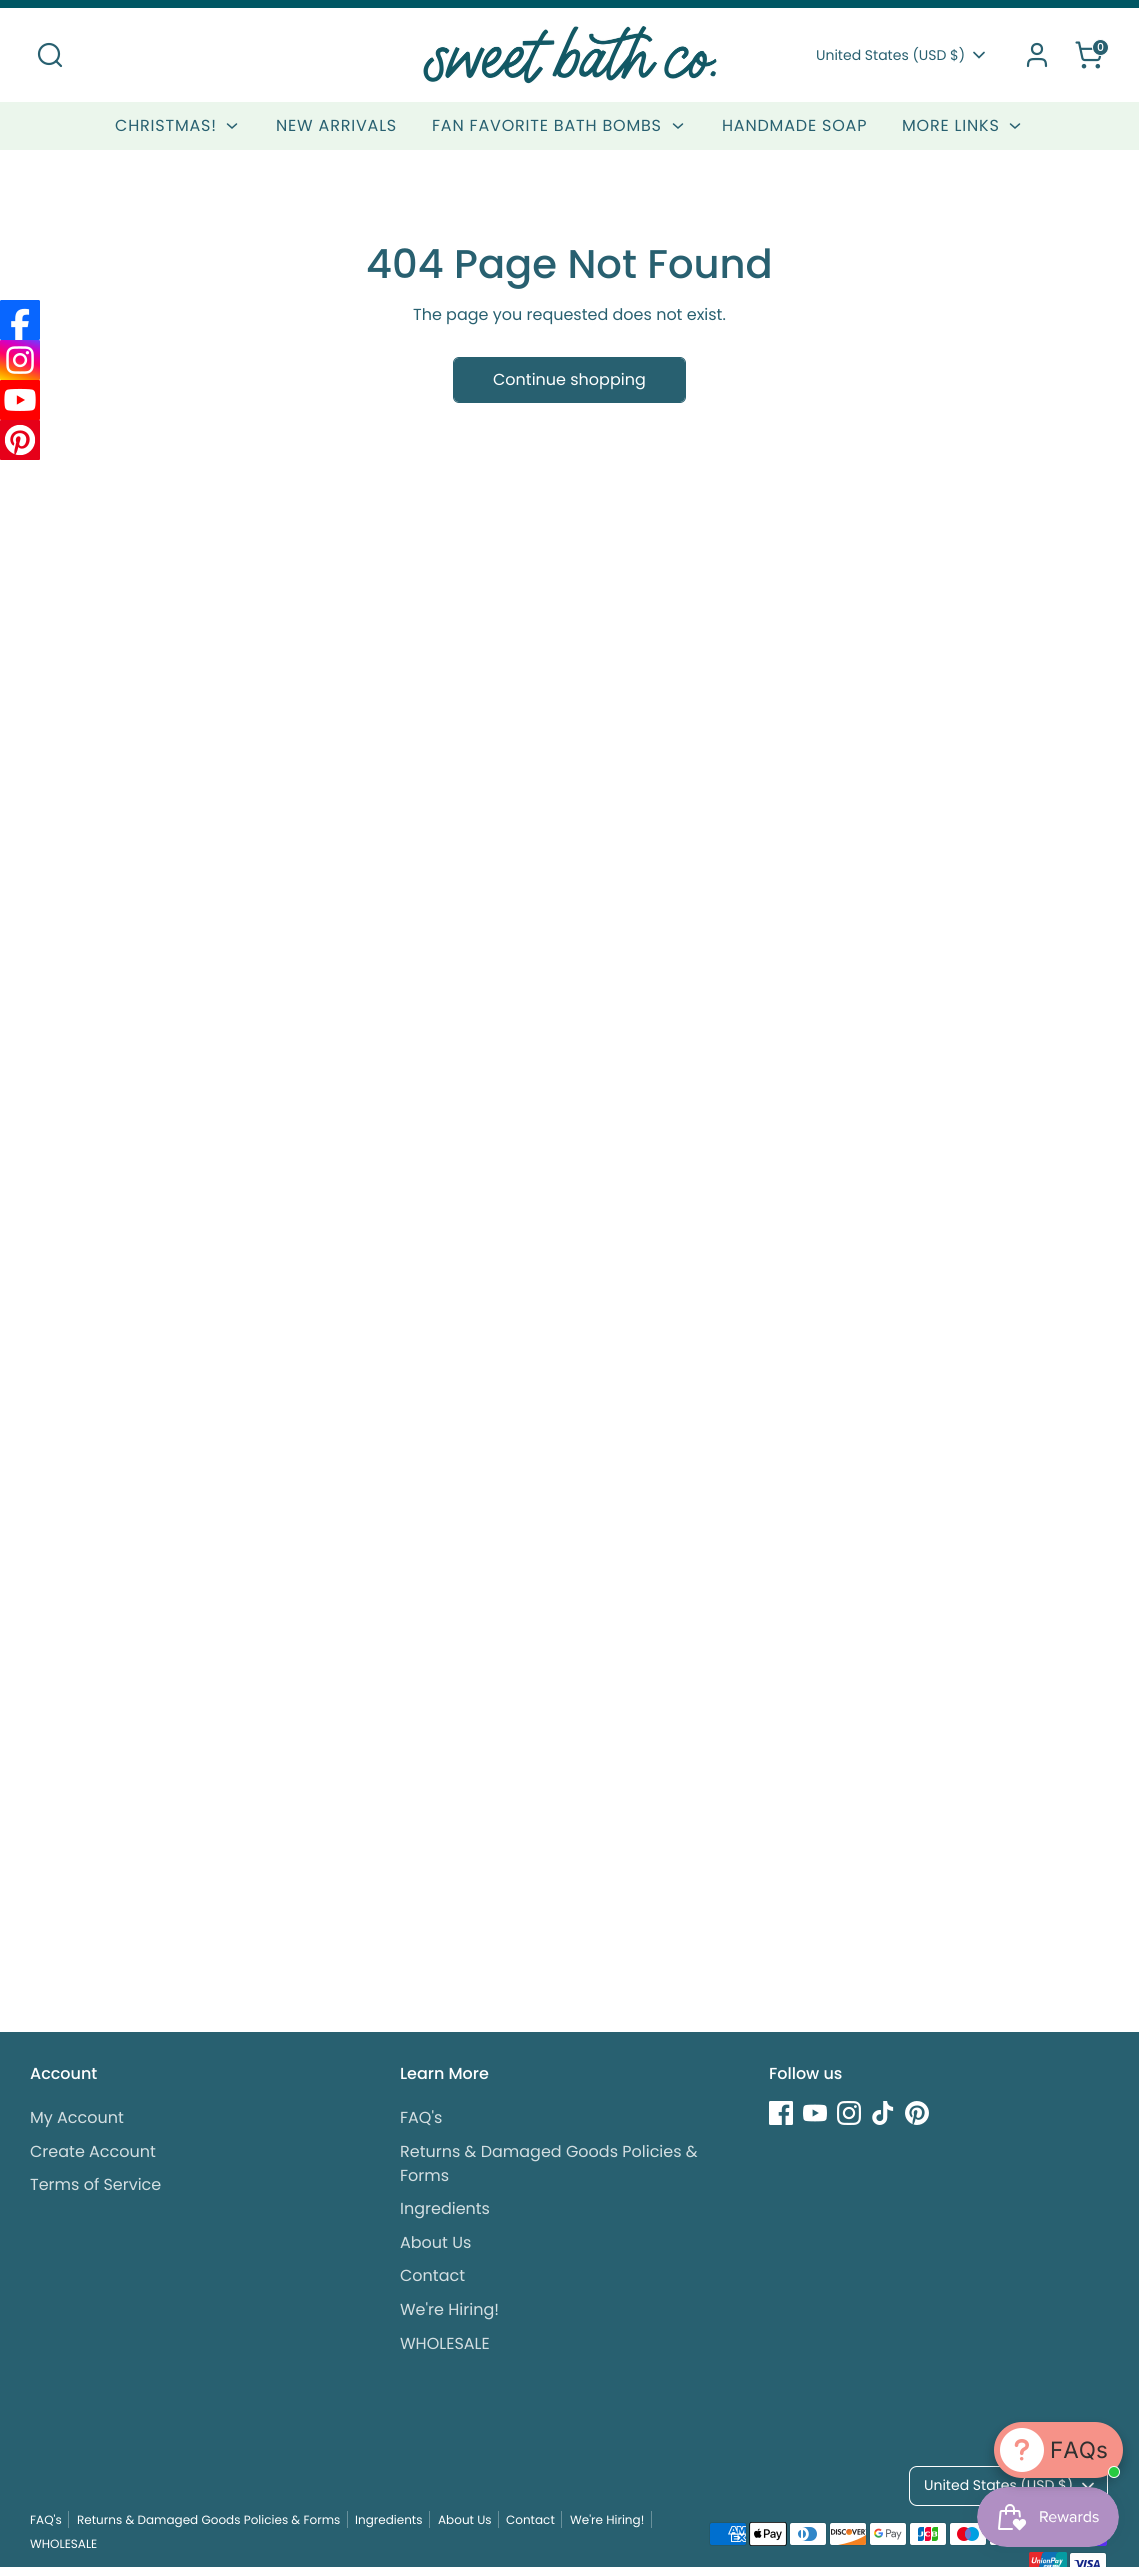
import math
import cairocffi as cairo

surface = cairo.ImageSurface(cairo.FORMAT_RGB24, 1139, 2567)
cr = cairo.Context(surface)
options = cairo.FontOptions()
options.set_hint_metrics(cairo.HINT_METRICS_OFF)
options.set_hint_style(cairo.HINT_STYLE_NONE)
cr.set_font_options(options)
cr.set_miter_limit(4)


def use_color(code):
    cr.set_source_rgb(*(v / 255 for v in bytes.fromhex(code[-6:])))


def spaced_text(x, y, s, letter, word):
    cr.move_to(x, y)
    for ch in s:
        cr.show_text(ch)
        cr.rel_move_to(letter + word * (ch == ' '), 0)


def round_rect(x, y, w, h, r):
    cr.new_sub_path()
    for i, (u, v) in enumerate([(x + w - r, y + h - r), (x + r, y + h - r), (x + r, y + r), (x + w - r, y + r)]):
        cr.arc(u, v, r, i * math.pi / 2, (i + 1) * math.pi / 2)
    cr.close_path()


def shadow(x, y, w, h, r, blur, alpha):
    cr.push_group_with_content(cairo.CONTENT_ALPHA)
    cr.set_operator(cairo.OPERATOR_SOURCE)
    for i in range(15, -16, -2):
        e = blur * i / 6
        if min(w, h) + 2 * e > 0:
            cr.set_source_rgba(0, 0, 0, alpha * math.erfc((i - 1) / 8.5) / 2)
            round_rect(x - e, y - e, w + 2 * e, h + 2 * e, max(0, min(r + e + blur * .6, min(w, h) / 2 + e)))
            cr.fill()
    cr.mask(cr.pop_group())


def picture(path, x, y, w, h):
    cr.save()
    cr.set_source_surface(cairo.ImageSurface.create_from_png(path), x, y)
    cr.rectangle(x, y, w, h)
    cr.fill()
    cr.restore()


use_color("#ffffff")
cr.paint()
use_color("#005764")
cr.rectangle(0, 0, 1139, 8)
cr.fill()
cr.arc(49, 54, 10, 0, 2 * math.pi)
use_color("#286070")
cr.set_line_width(2.2)
cr.stroke()
cr.new_path()
cr.move_to(61, 66)
cr.line_to(56, 61)
cr.set_line_cap(cairo.LINE_CAP_ROUND)
cr.set_line_join(cairo.LINE_JOIN_ROUND)
cr.stroke()
picture("img1.png", 423, 26, 294, 58)
cr.select_font_face("Poppins")
cr.set_font_size(14)
cr.move_to(816, 60)
cr.show_text("United States (USD $)")
cr.new_path()
cr.move_to(974, 52.5)
cr.line_to(979, 57.5)
cr.line_to(984, 52.5)
cr.set_line_width(1.7)
cr.set_line_join(cairo.LINE_JOIN_MITER)
cr.stroke()
cr.new_path()
cr.move_to(1046, 66)
cr.curve_to(1046, 59, 1043.5, 59, 1037, 59)
cr.curve_to(1030.5, 59, 1028, 59, 1028, 66)
cr.set_line_width(2.2)
cr.set_line_join(cairo.LINE_JOIN_ROUND)
cr.stroke()
cr.arc(1037, 49, 5, 0, 2 * math.pi)
cr.set_line_cap(cairo.LINE_CAP_BUTT)
cr.set_line_join(cairo.LINE_JOIN_MITER)
cr.stroke()
picture("img2.png", 1075, 41, 27, 28)
cr.arc(1100.5, 47.5, 8, 0, 2 * math.pi)
cr.fill_preserve()
use_color("#ffffff")
cr.set_line_width(1)
cr.stroke()
cr.select_font_face("Poppins Medium")
cr.set_font_size(11)
cr.move_to(1097, 51)
cr.show_text("0")
use_color("#ebf6ec")
cr.rectangle(0, 102, 1139, 48)
cr.fill()
cr.select_font_face("Poppins")
cr.set_font_size(16)
use_color("#286070")
spaced_text(115, 131, "CHRISTMAS!", 0.8, 0)
cr.new_path()
cr.move_to(227.5, 124)
cr.line_to(232, 128)
cr.line_to(236.5, 124)
cr.set_line_width(1.5)
cr.set_line_cap(cairo.LINE_CAP_ROUND)
cr.stroke()
spaced_text(276, 131, "NEW ARRIVALS", 0.8, 0)
spaced_text(432, 131, "FAN FAVORITE BATH BOMBS", 0.8, 0)
cr.new_path()
cr.move_to(673.5, 124)
cr.line_to(678, 128)
cr.line_to(682.5, 124)
cr.stroke()
spaced_text(722, 131, "HANDMADE SOAP", 0.8, 0)
spaced_text(902, 131, "MORE LINKS", 0.8, 0)
cr.new_path()
cr.move_to(1010.5, 124)
cr.line_to(1015, 128)
cr.line_to(1019.5, 124)
cr.stroke()
picture("img3.png", 0, 300, 40, 40)
picture("img4.png", 0, 340, 40, 40)
picture("img5.png", 0, 380, 40, 40)
picture("img6.png", 0, 420, 40, 40)
cr.select_font_face("Poppins Medium")
cr.set_font_size(40.1)
cr.move_to(366, 278)
cr.show_text("404 Page Not Found")
cr.select_font_face("Poppins")
cr.set_font_size(16)
cr.move_to(413, 320)
cr.show_text("The page you requested does not exist.")
round_rect(453.5, 357.5, 232, 45, 5.5)
cr.set_line_width(1)
cr.set_line_cap(cairo.LINE_CAP_BUTT)
cr.stroke()
round_rect(454, 358, 231, 44, 5)
cr.fill()
use_color("#ffffff")
cr.move_to(493, 385)
cr.show_text("Continue shopping")
use_color("#286070")
cr.rectangle(0, 2032, 1139, 535)
cr.fill()
cr.select_font_face("Poppins Medium")
use_color("#ffffff")
cr.move_to(30, 2079)
cr.show_text("Account")
cr.select_font_face("Poppins")
use_color("#d4dfe2")
cr.move_to(30, 2123)
cr.show_text("My Account")
cr.move_to(30, 2157)
cr.show_text("Create Account")
cr.move_to(30, 2190)
cr.show_text("Terms of Service")
cr.select_font_face("Poppins Medium")
use_color("#ffffff")
cr.move_to(400, 2079)
cr.show_text("Learn More")
cr.select_font_face("Poppins")
use_color("#d4dfe2")
cr.move_to(400, 2123)
cr.show_text("FAQ's")
cr.move_to(400, 2157)
cr.show_text("Returns & Damaged Goods Policies &")
cr.move_to(400, 2181)
cr.show_text("Forms")
cr.move_to(400, 2214)
cr.show_text("Ingredients")
cr.move_to(400, 2248)
cr.show_text("About Us")
cr.move_to(400, 2281)
cr.show_text("Contact")
cr.move_to(400, 2315)
cr.show_text("We're Hiring!")
cr.move_to(400, 2349)
cr.show_text("WHOLESALE")
cr.select_font_face("Poppins Medium")
use_color("#ffffff")
cr.move_to(769, 2079)
cr.show_text("Follow us")
picture("img7.png", 769, 2101, 24, 24)
picture("img8.png", 803, 2104, 24, 18)
picture("img9.png", 837, 2101, 24, 24)
picture("img10.png", 872, 2101, 22, 24)
picture("img11.png", 905, 2101, 24, 24)
round_rect(909.5, 2466.5, 198, 39, 7.5)
cr.stroke()
cr.select_font_face("Poppins")
cr.set_font_size(14)
cr.move_to(924, 2490)
cr.show_text("United States (USD $)")
cr.new_path()
cr.move_to(1083, 2483.5)
cr.line_to(1088, 2488.5)
cr.line_to(1093, 2483.5)
cr.set_line_width(1.7)
cr.set_line_cap(cairo.LINE_CAP_ROUND)
cr.stroke()
picture("img12.png", 709, 2522, 38, 24)
picture("img13.png", 749, 2522, 38, 24)
picture("img14.png", 789, 2522, 38, 24)
picture("img15.png", 829, 2522, 38, 24)
picture("img16.png", 869, 2522, 38, 24)
picture("img17.png", 909, 2522, 38, 24)
picture("img18.png", 949, 2522, 38, 24)
picture("img19.png", 989, 2540, 11, 6)
picture("img20.png", 1096, 2540, 11, 6)
picture("img21.png", 1029, 2552, 38, 15)
picture("img22.png", 1069, 2552, 38, 15)
cr.set_font_size(12)
cr.move_to(30, 2524)
cr.show_text("FAQ's")
use_color("#69909b")
cr.rectangle(68, 2511, 1, 17)
cr.fill()
use_color("#ffffff")
cr.move_to(77, 2524)
cr.show_text("Returns & Damaged Goods Policies & Forms")
use_color("#69909b")
cr.rectangle(347, 2511, 1, 17)
cr.fill()
use_color("#ffffff")
cr.move_to(355, 2524)
cr.show_text("Ingredients")
use_color("#69909b")
cr.rectangle(429, 2511, 1, 17)
cr.fill()
use_color("#ffffff")
cr.move_to(438, 2524)
cr.show_text("About Us")
use_color("#69909b")
cr.rectangle(498, 2511, 1, 17)
cr.fill()
use_color("#ffffff")
cr.move_to(506, 2524)
cr.show_text("Contact")
use_color("#69909b")
cr.rectangle(561, 2511, 1, 17)
cr.fill()
use_color("#ffffff")
cr.move_to(570, 2524)
cr.show_text("We're Hiring!")
use_color("#69909b")
cr.rectangle(651, 2511, 1, 17)
cr.fill()
use_color("#ffffff")
cr.move_to(30, 2548)
cr.show_text("WHOLESALE")
use_color("#000000")
shadow(977, 2487, 142, 60, 30, 12.5, 0.05)
picture("img24.png", 977, 2487, 142, 60)
shadow(994, 2428, 129, 56, 28, 6, 0.25)
use_color("#f69288")
round_rect(994, 2422, 129, 56, 28)
cr.fill()
use_color("#ffffff")
cr.arc(1022, 2450, 22, 0, 2 * math.pi)
cr.fill()
picture("img23.png", 1014, 2439, 15, 22)
cr.select_font_face("Inter")
cr.set_font_size(22.5)
use_color("#303030")
cr.move_to(1050, 2458)
cr.show_text("FAQs")
use_color("#27ca40")
cr.new_path()
cr.arc(1114, 2472, 5.5, 0, 2 * math.pi)
cr.fill_preserve()
use_color("#ffffff")
cr.set_line_width(1)
cr.set_line_cap(cairo.LINE_CAP_BUTT)
cr.stroke()
surface.write_to_png("result.png")
